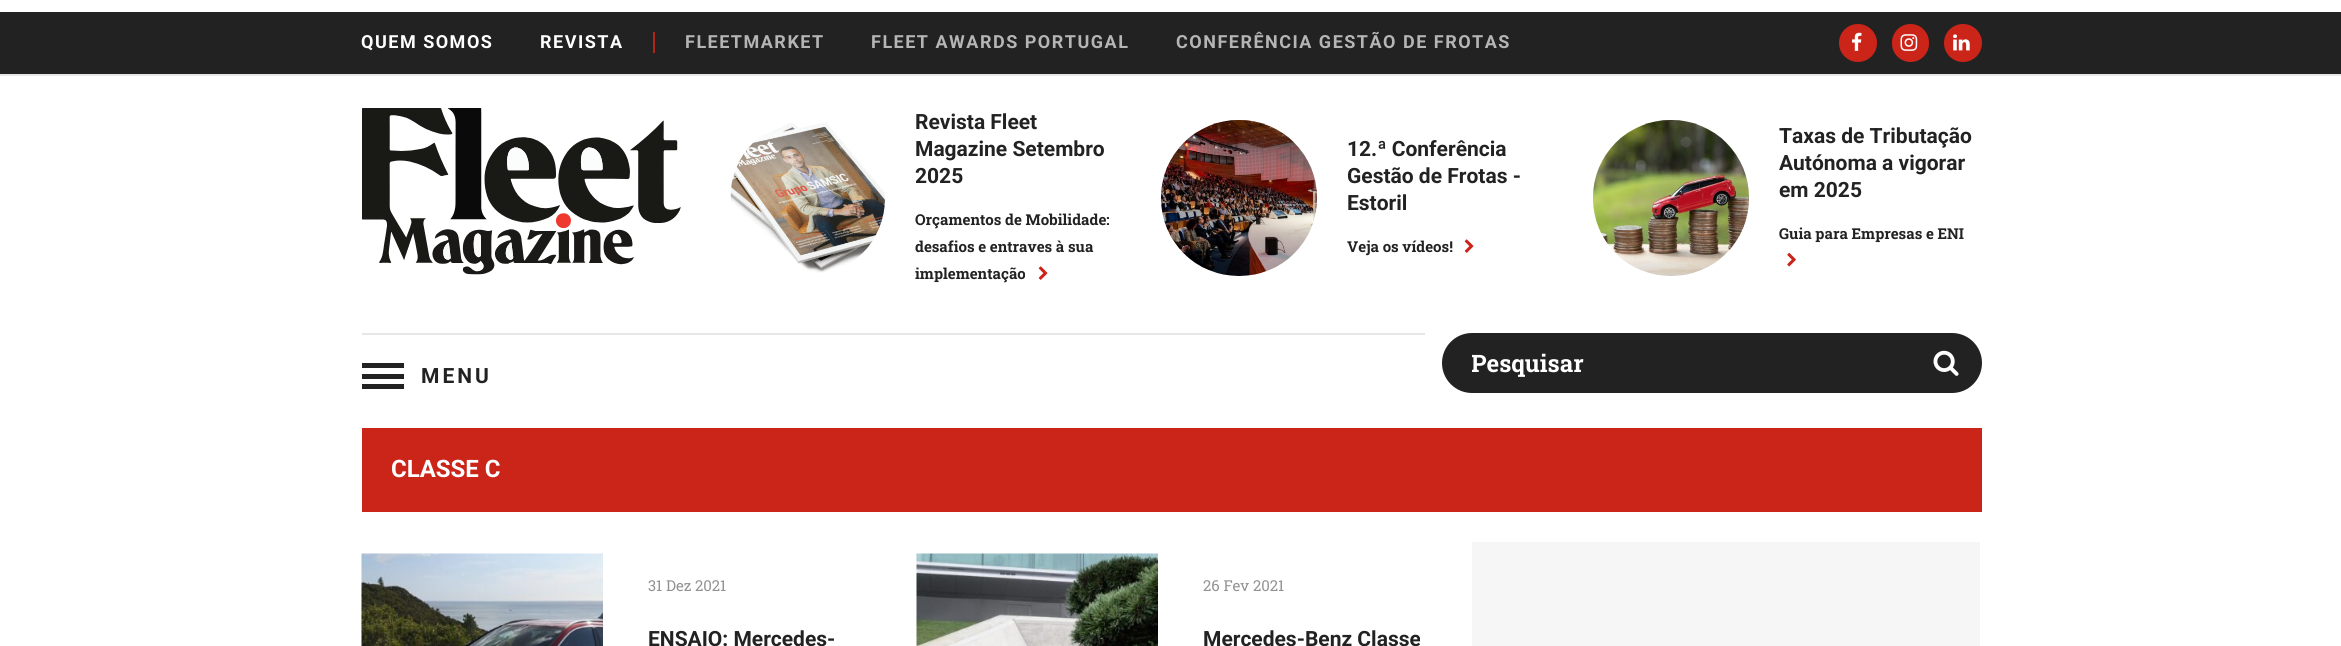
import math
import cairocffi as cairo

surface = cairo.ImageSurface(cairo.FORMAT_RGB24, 2341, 646)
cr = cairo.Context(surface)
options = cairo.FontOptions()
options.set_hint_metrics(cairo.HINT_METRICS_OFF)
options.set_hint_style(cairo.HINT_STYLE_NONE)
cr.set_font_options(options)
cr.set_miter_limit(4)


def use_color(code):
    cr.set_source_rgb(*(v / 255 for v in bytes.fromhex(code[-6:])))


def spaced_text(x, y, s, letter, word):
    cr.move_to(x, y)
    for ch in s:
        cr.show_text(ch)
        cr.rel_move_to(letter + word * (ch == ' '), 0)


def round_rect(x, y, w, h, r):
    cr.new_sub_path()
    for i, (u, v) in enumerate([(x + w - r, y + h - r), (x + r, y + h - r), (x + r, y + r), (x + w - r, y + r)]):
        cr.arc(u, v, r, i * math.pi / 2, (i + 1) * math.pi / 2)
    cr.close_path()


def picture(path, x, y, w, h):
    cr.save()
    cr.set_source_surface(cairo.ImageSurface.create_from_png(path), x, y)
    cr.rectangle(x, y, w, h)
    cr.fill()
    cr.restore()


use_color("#ffffff")
cr.paint()
use_color("#222222")
cr.rectangle(0, 12, 2341, 62)
cr.fill()
use_color("#b3241b")
cr.rectangle(653, 32, 2, 21)
cr.fill()
cr.select_font_face("Roboto", cairo.FONT_SLANT_NORMAL, cairo.FONT_WEIGHT_BOLD)
cr.set_font_size(18)
use_color("#ffffff")
spaced_text(361, 48, "QUEM SOMOS", 1.5, 0)
spaced_text(540, 48, "REVISTA", 1.5, 0)
use_color("#b5b5b5")
spaced_text(685, 48, "FLEETMARKET", 1.5, 0)
spaced_text(871, 48, "FLEET AWARDS PORTUGAL", 1.5, 0)
spaced_text(1176, 48, "CONFERÊNCIA GESTÃO DE FROTAS", 1.5, 0)
use_color("#cb2419")
cr.new_path()
cr.arc(1858, 43, 19, 0, 2 * math.pi)
cr.fill()
picture("img1.png", 1852, 32, 10, 19)
round_rect(1892, 24, 37, 38, 18.5)
cr.fill()
picture("img2.png", 1900, 34, 18, 17)
cr.arc(1963, 43, 19, 0, 2 * math.pi)
cr.fill()
picture("img3.png", 1953, 34, 17, 17)
use_color("#e7e7e7")
cr.rectangle(0, 74, 2341, 2)
cr.fill()
picture("img4.png", 362, 108, 319, 167)
picture("img5.png", 730, 122, 155, 151)
cr.set_font_size(21)
use_color("#222222")
cr.move_to(915, 129)
cr.show_text("Revista Fleet")
cr.move_to(915, 156)
cr.show_text("Magazine Setembro")
cr.move_to(915, 183)
cr.show_text("2025")
cr.select_font_face("Roboto Slab", cairo.FONT_SLANT_NORMAL, cairo.FONT_WEIGHT_BOLD)
cr.set_font_size(15)
cr.move_to(915, 225)
cr.show_text("Orçamentos de Mobilidade:")
cr.move_to(915, 252)
cr.show_text("desafios e entraves à sua")
cr.move_to(915, 279)
cr.show_text("implementação")
picture("img6.png", 1038, 266, 10, 14)
picture("img7.png", 1161, 120, 156, 156)
cr.select_font_face("Roboto", cairo.FONT_SLANT_NORMAL, cairo.FONT_WEIGHT_BOLD)
cr.set_font_size(21)
cr.move_to(1347, 156)
cr.show_text("12.ª Conferência")
cr.move_to(1347, 183)
cr.show_text("Gestão de Frotas -")
cr.move_to(1347, 210)
cr.show_text("Estoril")
cr.select_font_face("Roboto Slab", cairo.FONT_SLANT_NORMAL, cairo.FONT_WEIGHT_BOLD)
cr.set_font_size(15)
cr.move_to(1347, 252)
cr.show_text("Veja os vídeos!")
picture("img6.png", 1464, 239, 10, 14)
picture("img8.png", 1593, 120, 156, 156)
cr.select_font_face("Roboto", cairo.FONT_SLANT_NORMAL, cairo.FONT_WEIGHT_BOLD)
cr.set_font_size(21)
cr.move_to(1779, 143)
cr.show_text("Taxas de Tributação")
cr.move_to(1779, 170)
cr.show_text("Autónoma a vigorar")
cr.move_to(1779, 197)
cr.show_text("em 2025")
cr.select_font_face("Roboto Slab", cairo.FONT_SLANT_NORMAL, cairo.FONT_WEIGHT_BOLD)
cr.set_font_size(15)
cr.move_to(1779, 239)
cr.show_text("Guia para Empresas e ENI")
picture("img9.png", 1787, 252, 9, 15)
use_color("#e7e7e7")
cr.rectangle(362, 333, 1063, 2)
cr.fill()
use_color("#222222")
cr.rectangle(362, 374, 42, 5)
cr.fill()
cr.rectangle(362, 363, 42, 5)
cr.fill()
cr.rectangle(362, 384, 42, 5)
cr.fill()
cr.select_font_face("Roboto", cairo.FONT_SLANT_NORMAL, cairo.FONT_WEIGHT_BOLD)
cr.set_font_size(21)
spaced_text(421, 383, "MENU", 3, 0)
round_rect(1442, 333, 540, 60, 30)
cr.fill()
cr.save()
cr.rectangle(1472, 347, 435, 31)
cr.clip()
cr.select_font_face("Roboto Slab", cairo.FONT_SLANT_NORMAL, cairo.FONT_WEIGHT_BOLD)
cr.set_font_size(24)
use_color("#ffffff")
cr.move_to(1471, 372)
cr.show_text("Pesquisar")
cr.restore()
picture("img10.png", 1933, 350, 26, 26)
use_color("#cb2419")
cr.rectangle(362, 428, 1620, 84)
cr.fill()
cr.set_font_size(24)
use_color("#ffffff")
cr.move_to(391, 477)
cr.show_text("CLASSE C")
picture("img11.png", 361, 553, 242, 93)
cr.select_font_face("Roboto Slab")
cr.set_font_size(15)
use_color("#939292")
cr.move_to(648, 591)
cr.show_text("31 Dez 2021")
cr.select_font_face("Roboto", cairo.FONT_SLANT_NORMAL, cairo.FONT_WEIGHT_BOLD)
cr.set_font_size(21)
use_color("#222222")
cr.move_to(648, 646)
cr.show_text("ENSAIO: Mercedes-")
picture("img12.png", 916, 553, 242, 93)
cr.select_font_face("Roboto Slab")
cr.set_font_size(15)
use_color("#939292")
cr.move_to(1203, 591)
cr.show_text("26 Fev 2021")
cr.select_font_face("Roboto", cairo.FONT_SLANT_NORMAL, cairo.FONT_WEIGHT_BOLD)
cr.set_font_size(21)
use_color("#222222")
cr.move_to(1203, 646)
cr.show_text("Mercedes-Benz Classe")
use_color("#f7f6f6")
cr.rectangle(1472, 542, 508, 104)
cr.fill()
surface.write_to_png("result.png")
